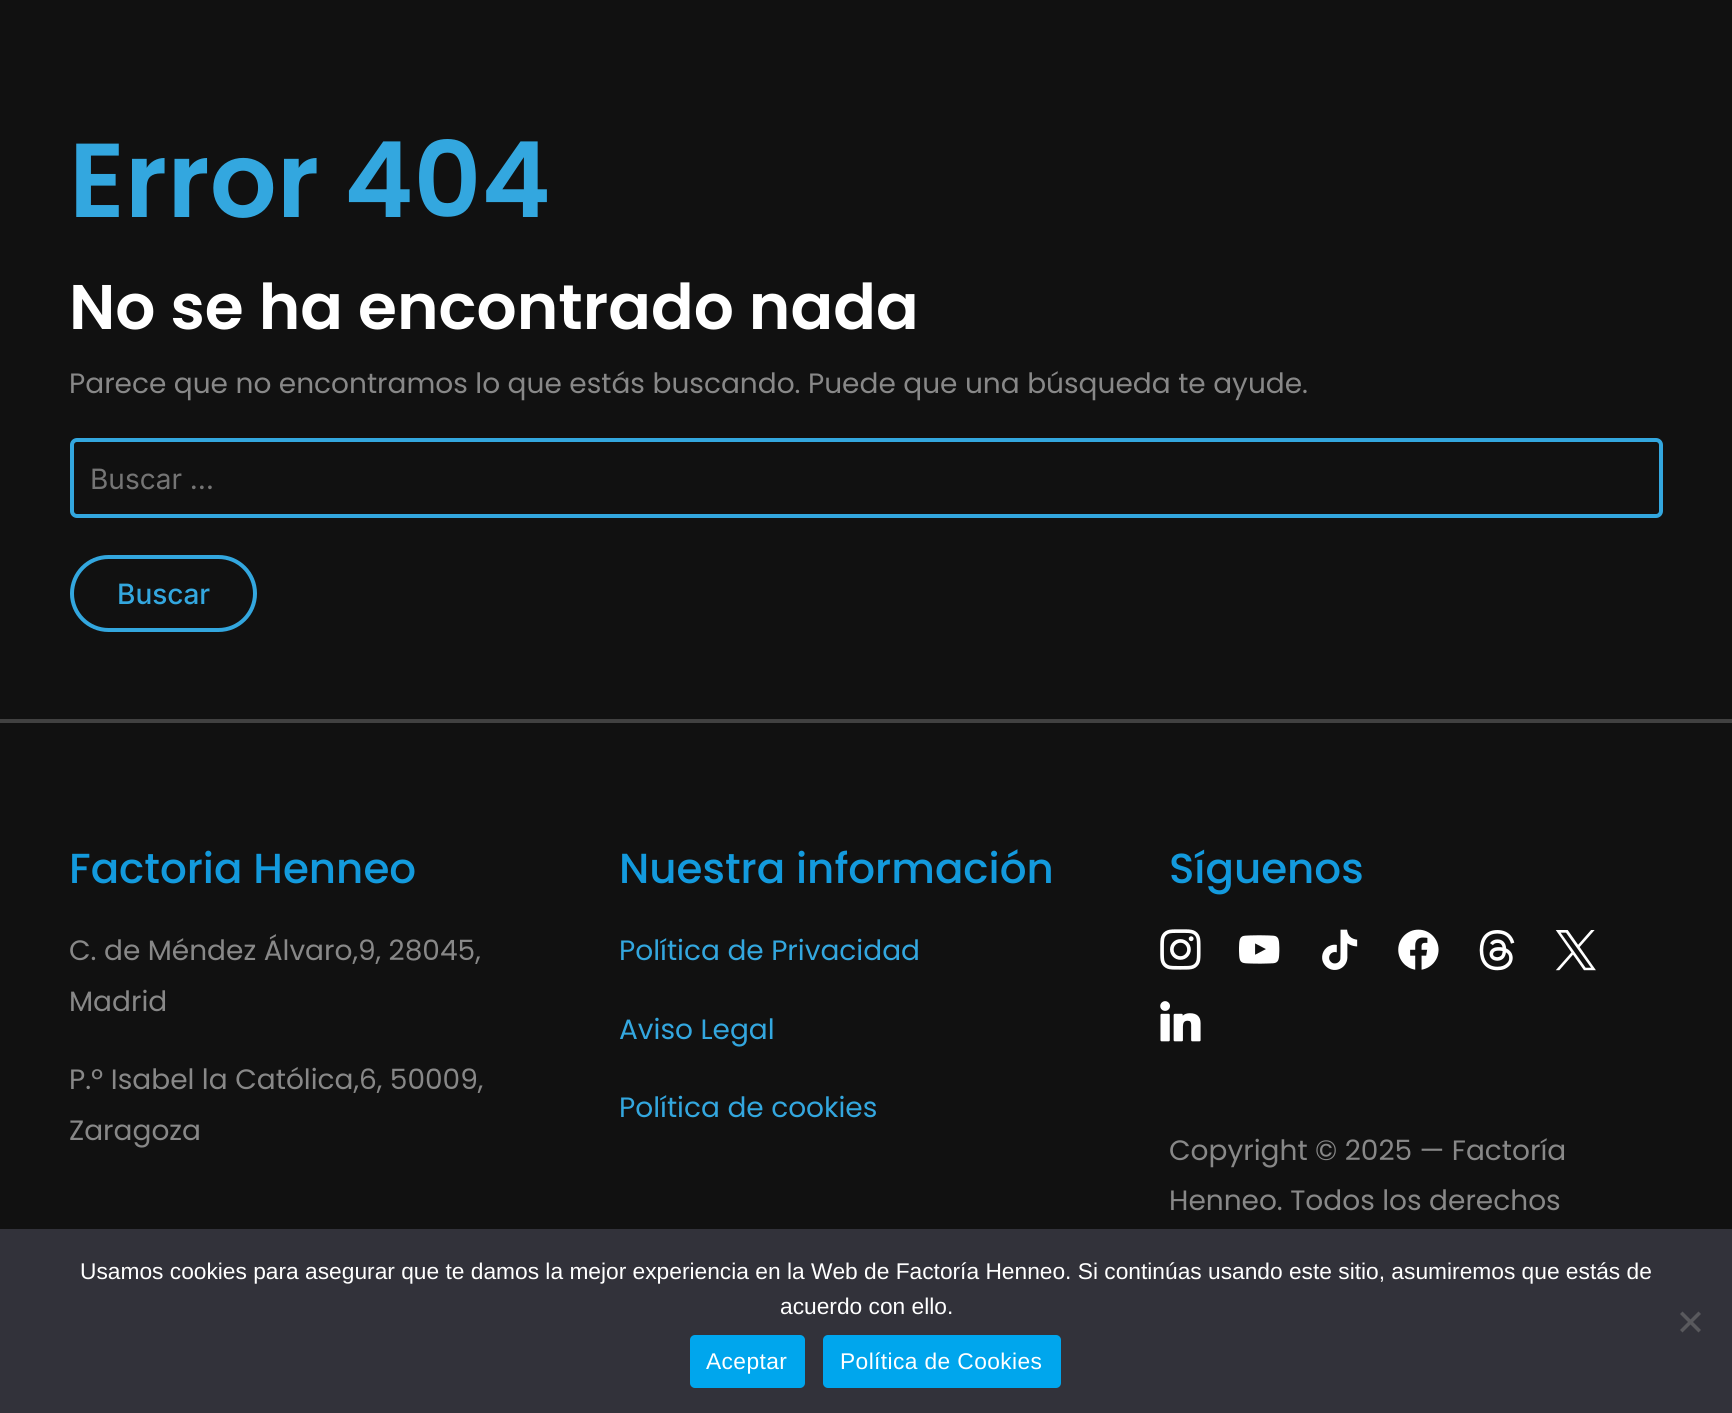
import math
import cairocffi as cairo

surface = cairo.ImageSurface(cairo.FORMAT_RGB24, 1732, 1413)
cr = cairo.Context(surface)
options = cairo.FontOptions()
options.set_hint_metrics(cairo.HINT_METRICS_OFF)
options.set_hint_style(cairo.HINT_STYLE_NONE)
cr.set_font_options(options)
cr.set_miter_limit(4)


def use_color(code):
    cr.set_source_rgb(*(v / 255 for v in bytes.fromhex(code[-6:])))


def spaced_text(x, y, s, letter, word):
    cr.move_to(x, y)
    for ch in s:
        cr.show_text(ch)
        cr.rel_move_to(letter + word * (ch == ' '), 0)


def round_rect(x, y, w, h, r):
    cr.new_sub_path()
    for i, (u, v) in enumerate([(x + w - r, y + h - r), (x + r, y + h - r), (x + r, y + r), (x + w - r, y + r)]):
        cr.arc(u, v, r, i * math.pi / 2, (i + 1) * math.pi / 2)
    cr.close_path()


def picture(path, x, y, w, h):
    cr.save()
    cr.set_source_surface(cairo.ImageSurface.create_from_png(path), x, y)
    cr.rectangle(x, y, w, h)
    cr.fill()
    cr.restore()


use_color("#111111")
cr.paint()
cr.select_font_face("Poppins SemiBold")
cr.set_font_size(105)
use_color("#33a7df")
cr.move_to(69, 217)
cr.show_text("Error 404")
cr.set_font_size(63)
use_color("#ffffff")
cr.move_to(69, 329)
cr.show_text("No se ha encontrado nada")
cr.select_font_face("Poppins")
cr.set_font_size(28)
use_color("#888888")
cr.move_to(69, 393)
cr.show_text("Parece que no encontramos lo que estás buscando. Puede que una búsqueda te ayude.")
round_rect(72, 440, 1589, 76, 5)
use_color("#33a7df")
cr.set_line_width(4)
cr.stroke()
cr.select_font_face("Inter")
use_color("#757575")
cr.move_to(90, 489)
cr.show_text("Buscar …")
round_rect(72, 557, 183, 73, 36.5)
use_color("#33a7df")
cr.stroke()
cr.select_font_face("Inter Medium")
cr.move_to(117, 604)
cr.show_text("Buscar")
use_color("#414141")
cr.rectangle(0, 719, 1732, 4)
cr.fill()
cr.select_font_face("Poppins Medium")
cr.set_font_size(42)
use_color("#139add")
cr.move_to(69, 883)
cr.show_text("Factoria Henneo")
cr.select_font_face("Poppins")
cr.set_font_size(28)
use_color("#888888")
cr.move_to(69, 960)
cr.show_text("C. de Méndez Álvaro,9, 28045,")
cr.move_to(69, 1011)
cr.show_text("Madrid")
cr.move_to(69, 1089)
cr.show_text("P.º Isabel la Católica,6, 50009,")
cr.move_to(69, 1140)
cr.show_text("Zaragoza")
cr.select_font_face("Poppins Medium")
cr.set_font_size(42)
use_color("#139add")
cr.move_to(619, 883)
cr.show_text("Nuestra información")
cr.select_font_face("Poppins")
cr.set_font_size(28)
use_color("#33a7df")
cr.move_to(619, 960)
cr.show_text("Política de Privacidad")
cr.move_to(619, 1039)
cr.show_text("Aviso Legal")
cr.move_to(619, 1117)
cr.show_text("Política de cookies")
cr.select_font_face("Poppins Medium")
cr.set_font_size(42)
use_color("#139add")
cr.move_to(1169, 883)
cr.show_text("Síguenos")
picture("img1.png", 1160, 929, 41, 41)
picture("img2.png", 1239, 935, 41, 29)
picture("img3.png", 1322, 929, 36, 41)
picture("img4.png", 1398, 929, 41, 41)
picture("img5.png", 1479, 930, 36, 41)
picture("img6.png", 1555, 930, 41, 41)
picture("img7.png", 1160, 1001, 41, 41)
cr.select_font_face("Poppins")
cr.set_font_size(28)
use_color("#888888")
cr.move_to(1169, 1160)
cr.show_text("Copyright © 2025 — Factoría")
cr.move_to(1169, 1210)
cr.show_text("Henneo. Todos los derechos")
use_color("#32323a")
cr.rectangle(0, 1229, 1732, 184)
cr.fill()
cr.select_font_face("Liberation Sans")
cr.set_font_size(22.75)
use_color("#ffffff")
cr.move_to(80, 1279)
cr.show_text("Usamos cookies para asegurar que te damos la mejor experiencia en la Web de Factoría Henneo. Si continúas usando este sitio, asumiremos que estás de")
cr.move_to(780, 1314)
cr.show_text("acuerdo con ello.")
use_color("#59595d")
cr.new_path()
cr.move_to(1698.5, 1311.5)
cr.line_to(1701, 1314)
cr.line_to(1682.5, 1332.5)
cr.line_to(1680, 1330)
cr.close_path()
cr.fill()
cr.new_path()
cr.move_to(1680, 1314)
cr.line_to(1682.5, 1311.5)
cr.line_to(1701, 1330)
cr.line_to(1698.5, 1332.5)
cr.close_path()
cr.fill()
use_color("#00a6ed")
round_rect(690, 1335, 115, 53, 5)
cr.fill()
use_color("#ffffff")
spaced_text(706, 1369, "Aceptar", 0.4, 0)
use_color("#00a6ed")
round_rect(823, 1335, 238, 53, 5)
cr.fill()
use_color("#ffffff")
spaced_text(840, 1369, "Política de Cookies", 0.4, 0)
surface.write_to_png("result.png")
